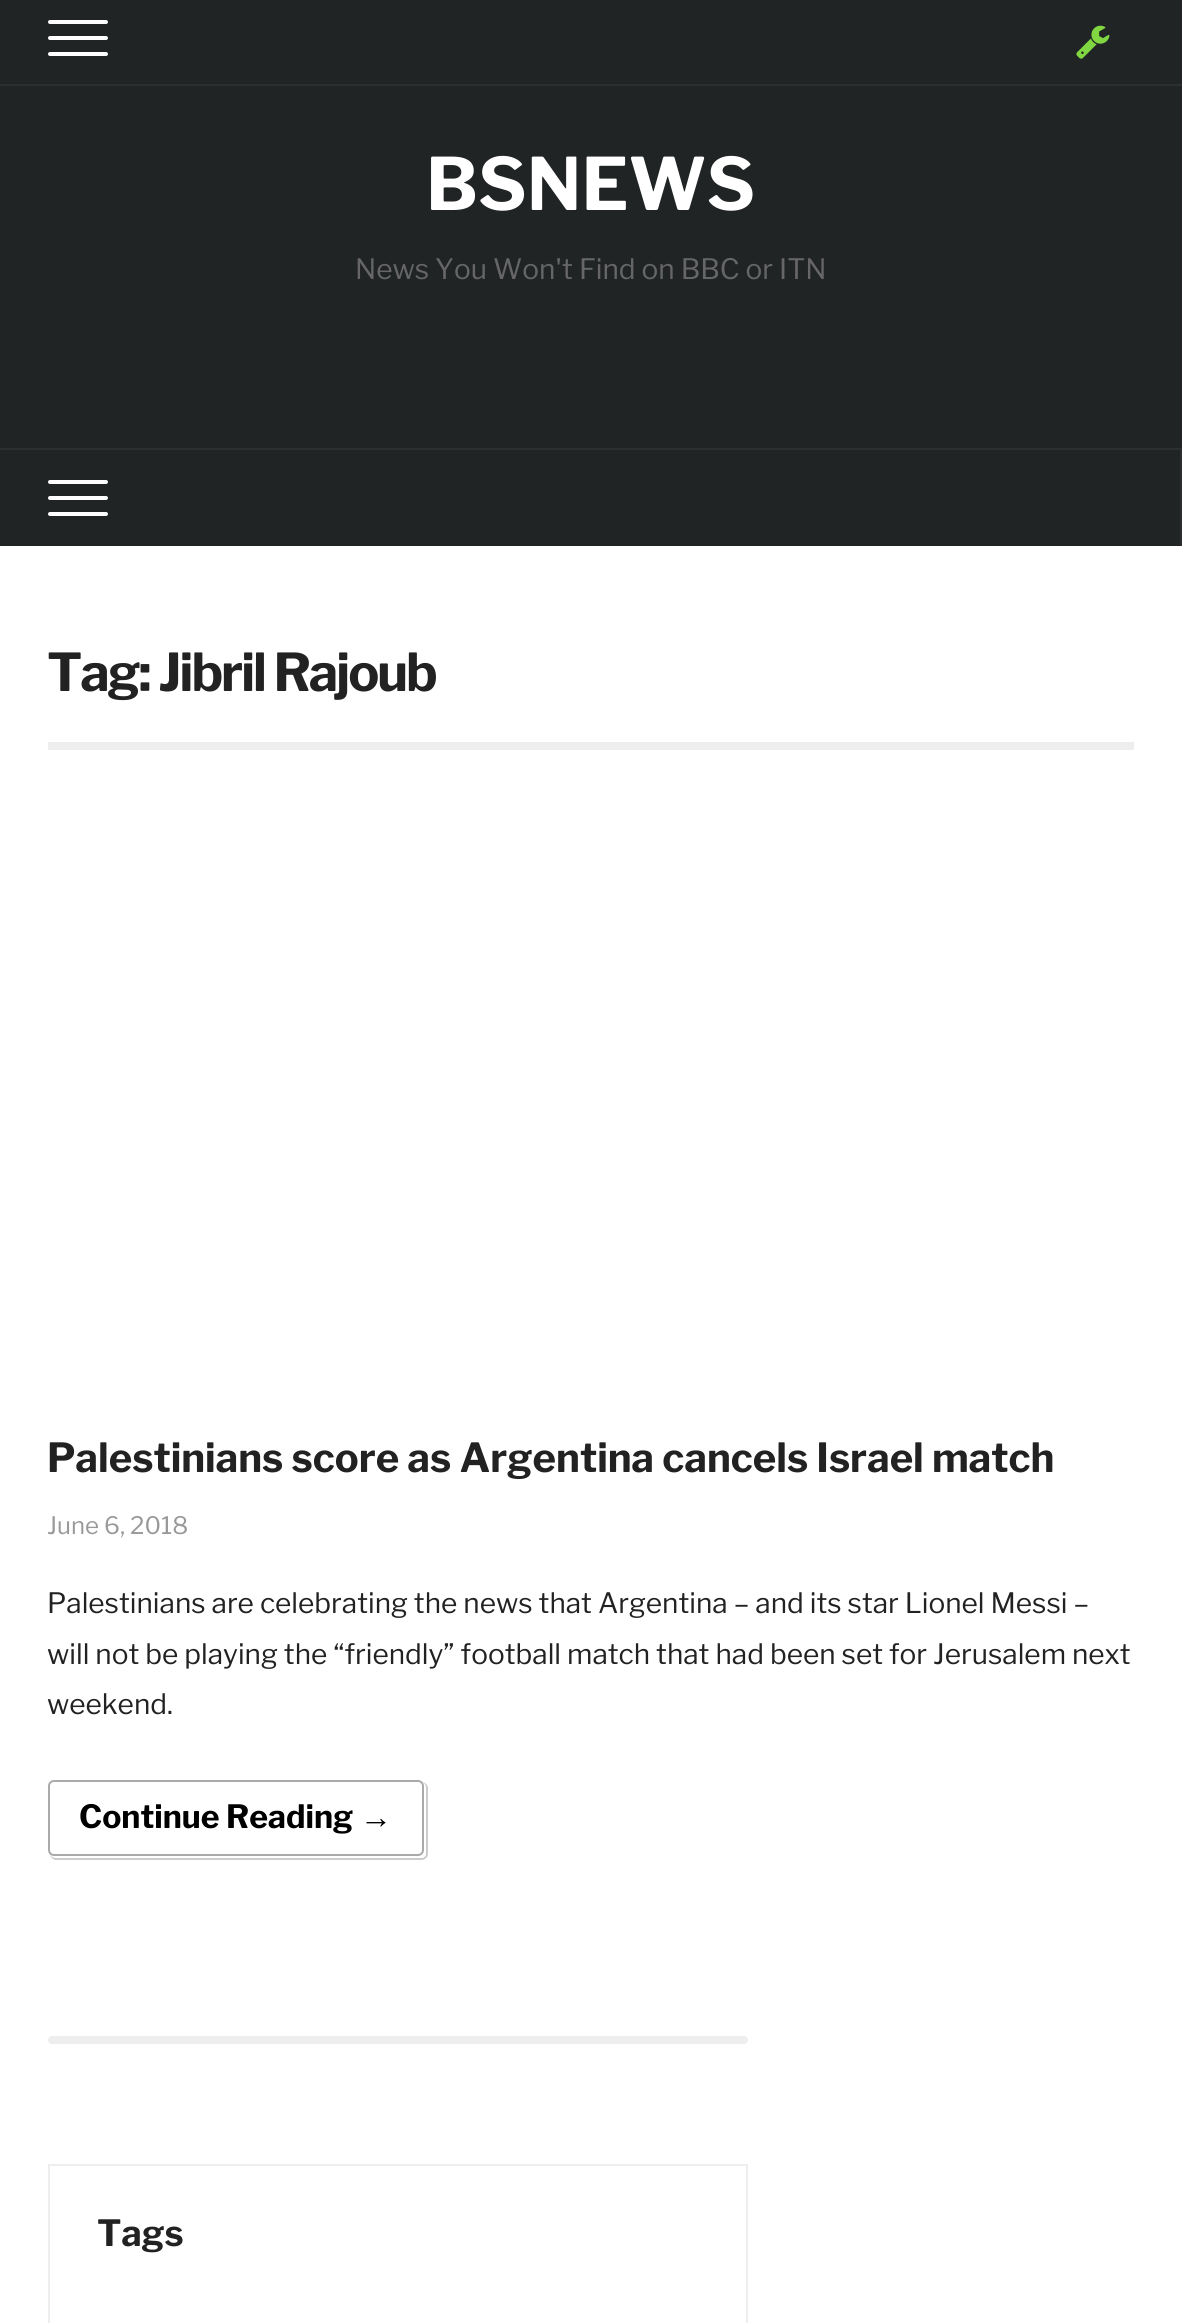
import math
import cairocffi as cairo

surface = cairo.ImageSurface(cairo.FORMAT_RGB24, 1182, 2323)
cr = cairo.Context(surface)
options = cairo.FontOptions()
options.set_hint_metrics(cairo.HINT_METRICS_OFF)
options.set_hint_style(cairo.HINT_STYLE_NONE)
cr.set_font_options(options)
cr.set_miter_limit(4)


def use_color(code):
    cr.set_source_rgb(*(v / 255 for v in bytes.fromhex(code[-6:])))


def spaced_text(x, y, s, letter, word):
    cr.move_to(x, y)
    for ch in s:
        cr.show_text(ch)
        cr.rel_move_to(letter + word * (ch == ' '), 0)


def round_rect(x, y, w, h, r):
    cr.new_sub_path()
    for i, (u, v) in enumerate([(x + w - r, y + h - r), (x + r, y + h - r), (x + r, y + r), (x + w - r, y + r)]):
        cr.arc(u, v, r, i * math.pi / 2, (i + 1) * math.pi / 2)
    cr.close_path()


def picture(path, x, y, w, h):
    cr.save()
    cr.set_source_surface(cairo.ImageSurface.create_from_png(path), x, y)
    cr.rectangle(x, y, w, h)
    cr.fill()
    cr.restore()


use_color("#ffffff")
cr.paint()
use_color("#212425")
cr.rectangle(0, 0, 1182, 546)
cr.fill()
use_color("#2c2f30")
cr.rectangle(0, 84, 1182, 2)
cr.fill()
use_color("#ffffff")
round_rect(48, 20, 60, 4, 2)
cr.fill()
round_rect(48, 36, 60, 4, 2)
cr.fill()
round_rect(48, 52, 60, 4, 2)
cr.fill()
picture("img1.png", 1076, 25, 34, 34)
cr.select_font_face("Libre Franklin", cairo.FONT_SLANT_NORMAL, cairo.FONT_WEIGHT_BOLD)
cr.set_font_size(72)
cr.move_to(426, 210)
cr.show_text("BSNEWS")
cr.select_font_face("Libre Franklin")
cr.set_font_size(28)
use_color("#666666")
cr.move_to(355, 279)
cr.show_text("News You Won't Find on BBC or ITN")
use_color("#2c2f30")
cr.rectangle(0, 448, 1182, 2)
cr.fill()
cr.rectangle(1180, 450, 2, 96)
cr.fill()
use_color("#ffffff")
round_rect(48, 480, 60, 4, 2)
cr.fill()
round_rect(48, 496, 60, 4, 2)
cr.fill()
round_rect(48, 512, 60, 4, 2)
cr.fill()
use_color("#eeeeee")
cr.rectangle(48, 742, 1086, 8)
cr.fill()
cr.select_font_face("Libre Franklin", cairo.FONT_SLANT_NORMAL, cairo.FONT_WEIGHT_BOLD)
cr.set_font_size(52)
use_color("#222222")
spaced_text(47, 691, "Tag: Jibril Rajoub", -2, 0)
cr.set_font_size(40)
cr.move_to(47, 1472)
cr.show_text("Palestinians score as Argentina cancels Israel match")
cr.select_font_face("Libre Franklin")
cr.set_font_size(24)
use_color("#999999")
cr.move_to(47, 1534)
cr.show_text("June 6, 2018")
cr.set_font_size(28)
use_color("#222222")
cr.move_to(47, 1613)
cr.show_text("Palestinians are celebrating the news that Argentina – and its star Lionel Messi –")
cr.move_to(47, 1664)
cr.show_text("will not be playing the “friendly” football match that had been set for Jerusalem next")
cr.move_to(47, 1714)
cr.show_text("weekend.")
round_rect(49, 1781, 374, 74, 5)
use_color("#aaaaaa")
cr.stroke()
cr.select_font_face("Libre Franklin", cairo.FONT_SLANT_NORMAL, cairo.FONT_WEIGHT_BOLD)
cr.set_font_size(32)
use_color("#000000")
cr.move_to(79, 1828)
cr.show_text("Continue Reading")
cr.select_font_face("Liberation Sans", cairo.FONT_SLANT_NORMAL, cairo.FONT_WEIGHT_BOLD)
cr.move_to(360, 1828)
cr.show_text("→")
use_color("#cccccc")
cr.set_fill_rule(cairo.FILL_RULE_EVEN_ODD)
cr.new_path()
cr.move_to(56, 1782)
cr.line_to(422, 1782)
cr.curve_to(425, 1782, 428, 1785, 428, 1788)
cr.line_to(428, 1854)
cr.curve_to(428, 1857, 425, 1860, 422, 1860)
cr.line_to(56, 1860)
cr.curve_to(53, 1860, 50, 1857, 50, 1854)
cr.line_to(50, 1788)
cr.curve_to(50, 1785, 53, 1782, 56, 1782)
cr.close_path()
cr.move_to(56, 1782)
cr.line_to(422, 1782)
cr.curve_to(424, 1782, 426, 1785, 426, 1788)
cr.line_to(426, 1854)
cr.curve_to(426, 1856, 424, 1858, 422, 1858)
cr.line_to(56, 1858)
cr.curve_to(53, 1858, 50, 1856, 50, 1854)
cr.line_to(50, 1788)
cr.curve_to(50, 1785, 53, 1782, 56, 1782)
cr.close_path()
cr.fill()
use_color("#eeeeee")
round_rect(48, 2036, 700, 8, 4)
cr.fill()
cr.rectangle(49, 2165, 698, 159)
cr.stroke()
cr.select_font_face("Libre Franklin", cairo.FONT_SLANT_NORMAL, cairo.FONT_WEIGHT_BOLD)
cr.set_font_size(36)
use_color("#222222")
cr.move_to(97, 2246)
cr.show_text("Tags")
surface.write_to_png("result.png")
